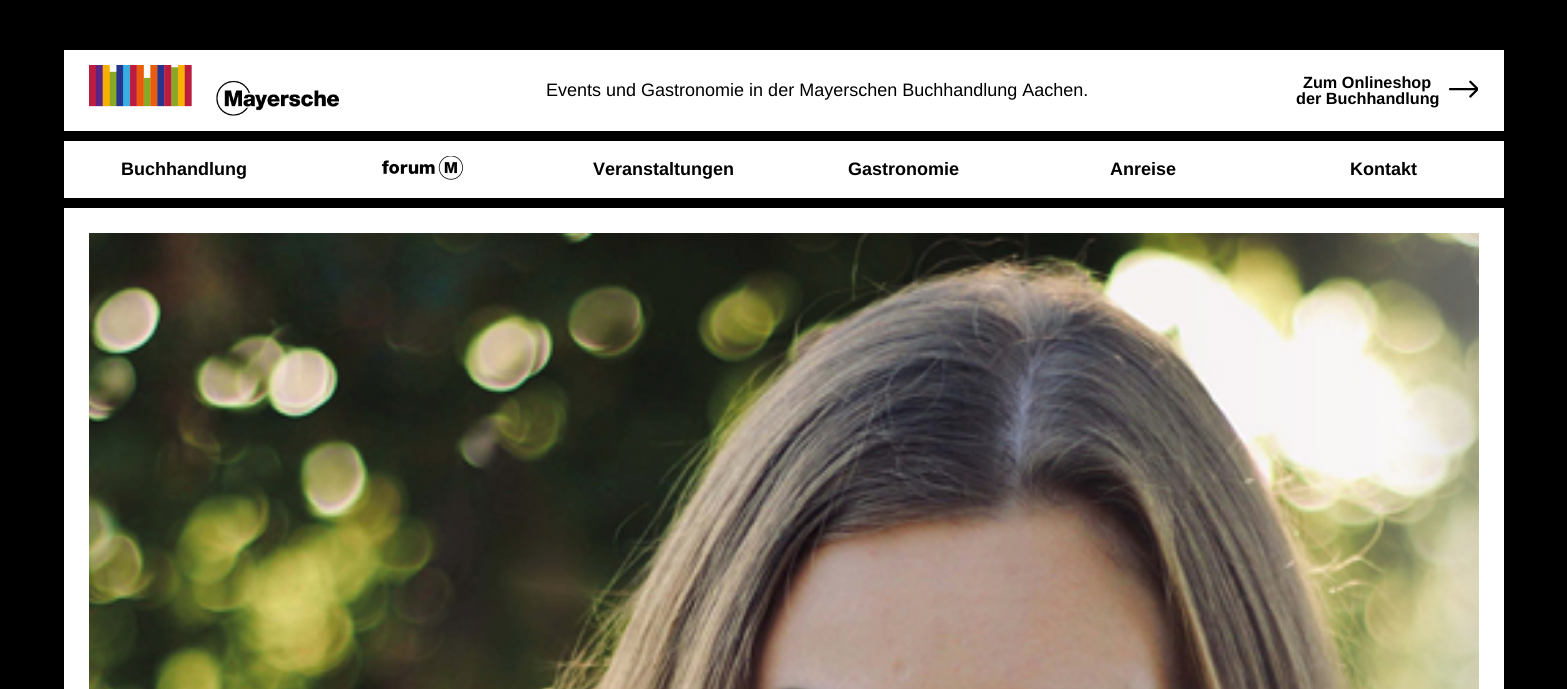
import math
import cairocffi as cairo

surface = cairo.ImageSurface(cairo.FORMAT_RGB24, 1567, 689)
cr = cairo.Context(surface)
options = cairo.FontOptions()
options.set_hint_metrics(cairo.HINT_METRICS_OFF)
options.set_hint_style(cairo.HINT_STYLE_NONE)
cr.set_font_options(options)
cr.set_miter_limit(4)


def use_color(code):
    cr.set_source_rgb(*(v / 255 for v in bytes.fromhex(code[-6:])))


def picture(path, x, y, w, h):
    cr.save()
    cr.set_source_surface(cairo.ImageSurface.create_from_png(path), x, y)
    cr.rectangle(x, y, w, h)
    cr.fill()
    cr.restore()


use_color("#000000")
cr.paint()
use_color("#ffffff")
cr.rectangle(64, 50, 1440, 81)
cr.fill()
picture("img1.png", 89, 65, 250, 51)
cr.select_font_face("Liberation Sans")
cr.set_font_size(18)
use_color("#000000")
cr.move_to(546, 96)
cr.show_text("Events und Gastronomie in der Mayerschen Buchhandlung Aachen.")
cr.select_font_face("Liberation Sans", cairo.FONT_SLANT_NORMAL, cairo.FONT_WEIGHT_BOLD)
cr.set_font_size(16.25)
cr.move_to(1303, 88)
cr.show_text("Zum Onlineshop")
cr.move_to(1296, 104)
cr.show_text("der Buchhandlung")
picture("img2.png", 1449, 80, 29, 18)
use_color("#ffffff")
cr.rectangle(64, 141, 1440, 57)
cr.fill()
cr.set_font_size(18)
use_color("#000000")
cr.move_to(121, 175)
cr.show_text("Buchhandlung")
picture("img3.png", 381, 156, 82, 24)
cr.move_to(593, 175)
cr.show_text("Veranstaltungen")
cr.move_to(848, 175)
cr.show_text("Gastronomie")
cr.move_to(1110, 175)
cr.show_text("Anreise")
cr.move_to(1350, 175)
cr.show_text("Kontakt")
use_color("#ffffff")
cr.rectangle(64, 208, 1440, 481)
cr.fill()
picture("img4.png", 89, 233, 1390, 456)
surface.write_to_png("result.png")
